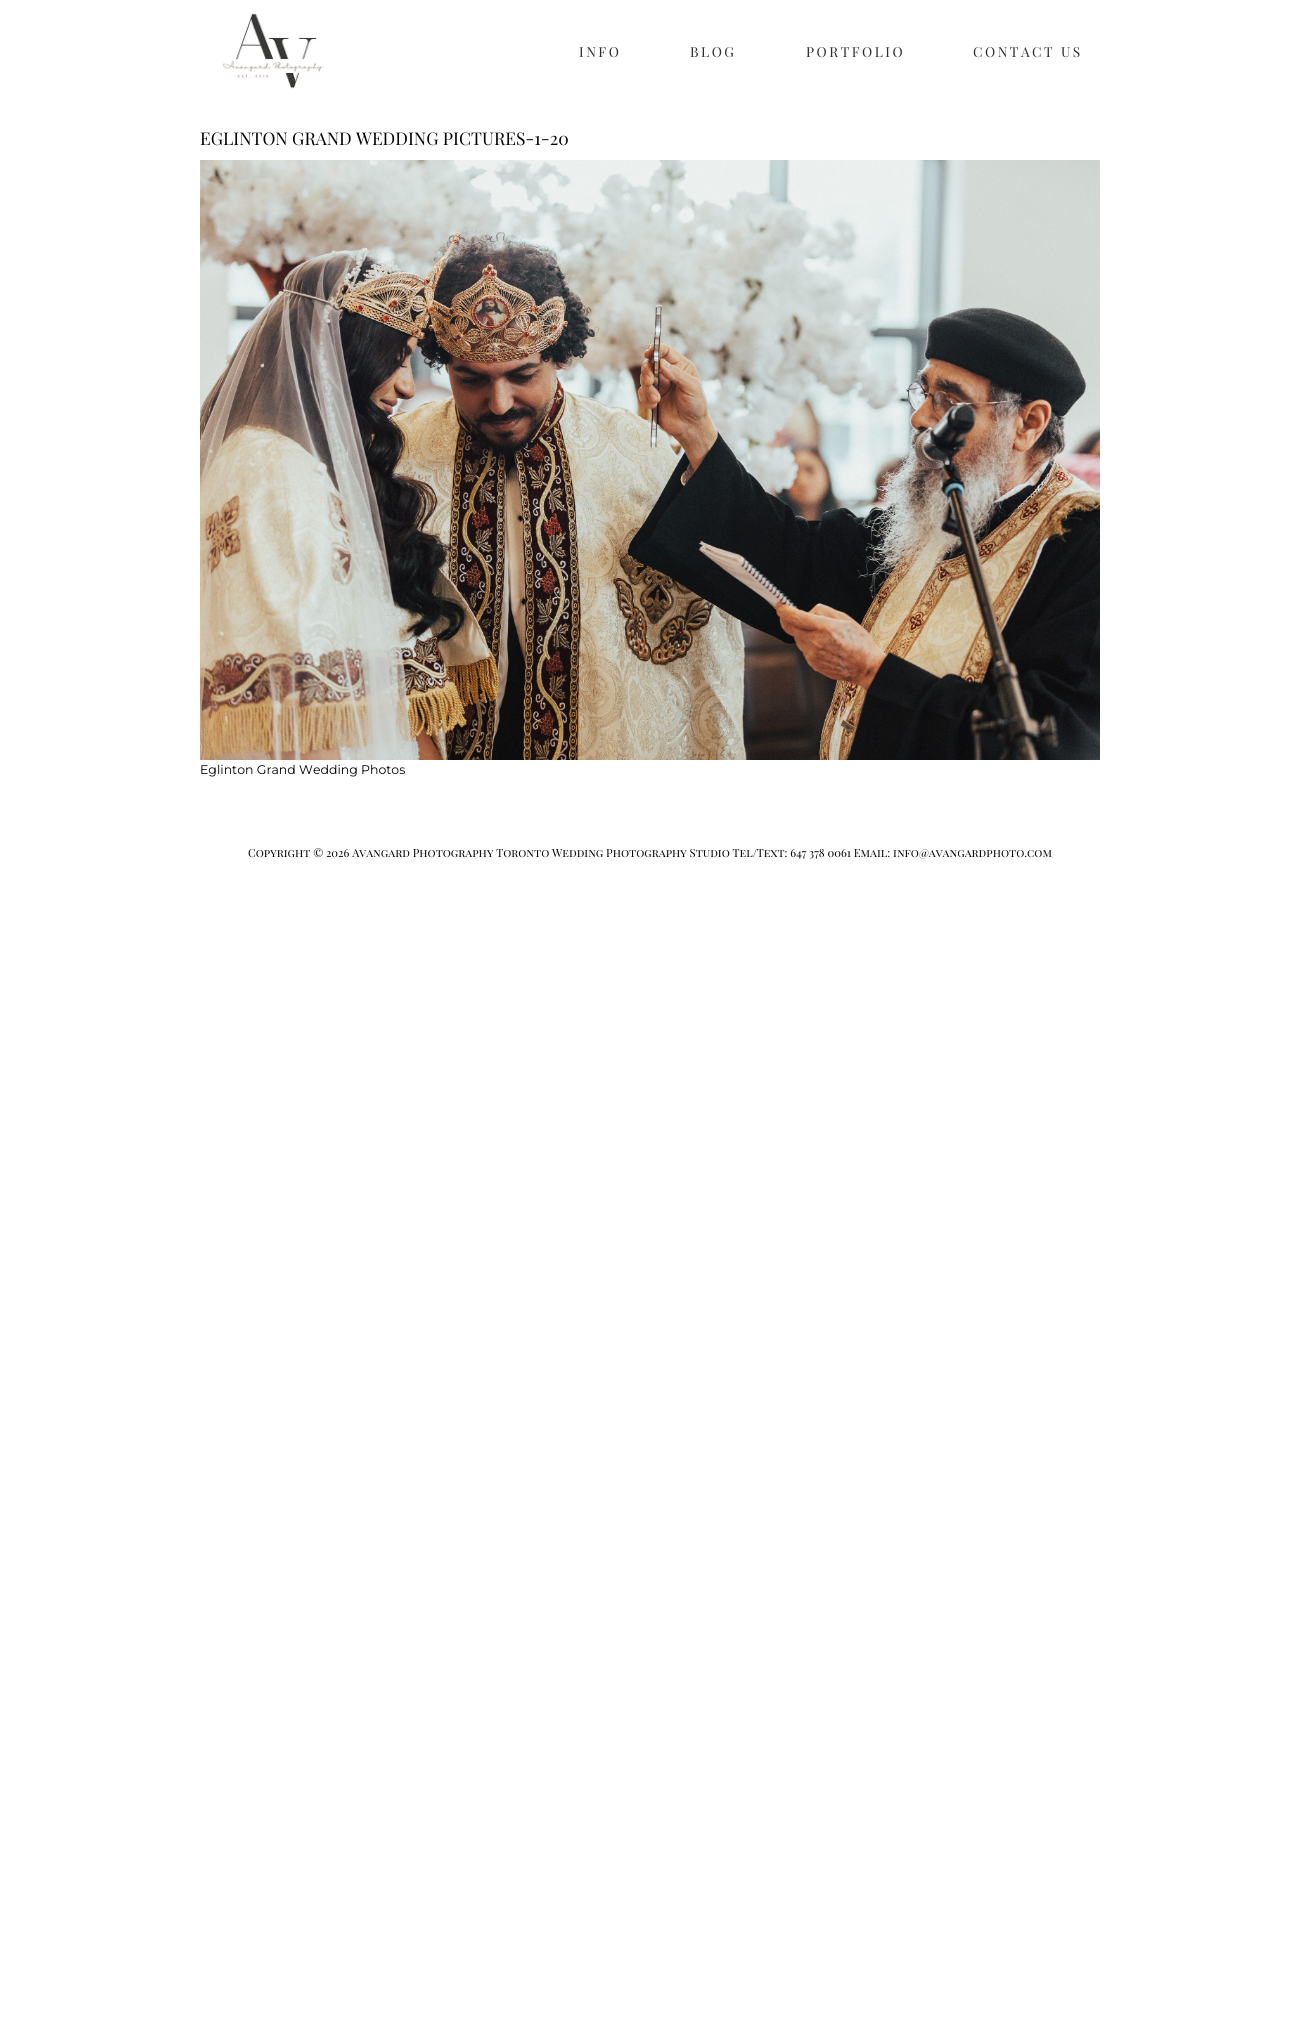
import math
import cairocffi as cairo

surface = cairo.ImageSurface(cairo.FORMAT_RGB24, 1300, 2038)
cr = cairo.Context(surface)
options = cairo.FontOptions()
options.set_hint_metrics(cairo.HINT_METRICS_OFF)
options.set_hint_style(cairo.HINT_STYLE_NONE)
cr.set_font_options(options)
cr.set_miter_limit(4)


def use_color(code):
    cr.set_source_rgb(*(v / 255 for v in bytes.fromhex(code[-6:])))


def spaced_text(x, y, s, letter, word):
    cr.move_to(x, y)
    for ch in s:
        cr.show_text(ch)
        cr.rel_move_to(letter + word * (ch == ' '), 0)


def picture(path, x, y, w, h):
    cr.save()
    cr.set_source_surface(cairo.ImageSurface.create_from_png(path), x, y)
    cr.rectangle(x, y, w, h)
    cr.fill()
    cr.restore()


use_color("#ffffff")
cr.paint()
picture("img1.png", 222, 13, 102, 76)
cr.select_font_face("Playfair Display SC")
cr.set_font_size(13.75)
use_color("#2b2b2b")
spaced_text(579, 57, "INFO", 2.5, 0)
spaced_text(690, 57, "BLOG", 2.5, 0)
spaced_text(806, 57, "PORTFOLIO", 2.5, 0)
spaced_text(973, 57, "CONTACT US", 2.5, 0)
cr.set_font_size(17.5)
use_color("#000000")
cr.move_to(200, 145)
cr.show_text("EGLINTON GRAND WEDDING PICTURES-1-20")
picture("img2.png", 200, 160, 900, 600)
cr.select_font_face("Montserrat Thin")
cr.set_font_size(12.5)
cr.move_to(200, 774)
cr.show_text("Eglinton Grand Wedding Photos")
cr.select_font_face("Playfair Display SC")
cr.set_font_size(11.25)
cr.move_to(248, 857)
cr.show_text("Copyright © 2026 Avangard Photography Toronto Wedding Photography Studio Tel/Text: 647 378 0061 Email: info@avangardphoto.com")
surface.write_to_png("result.png")
